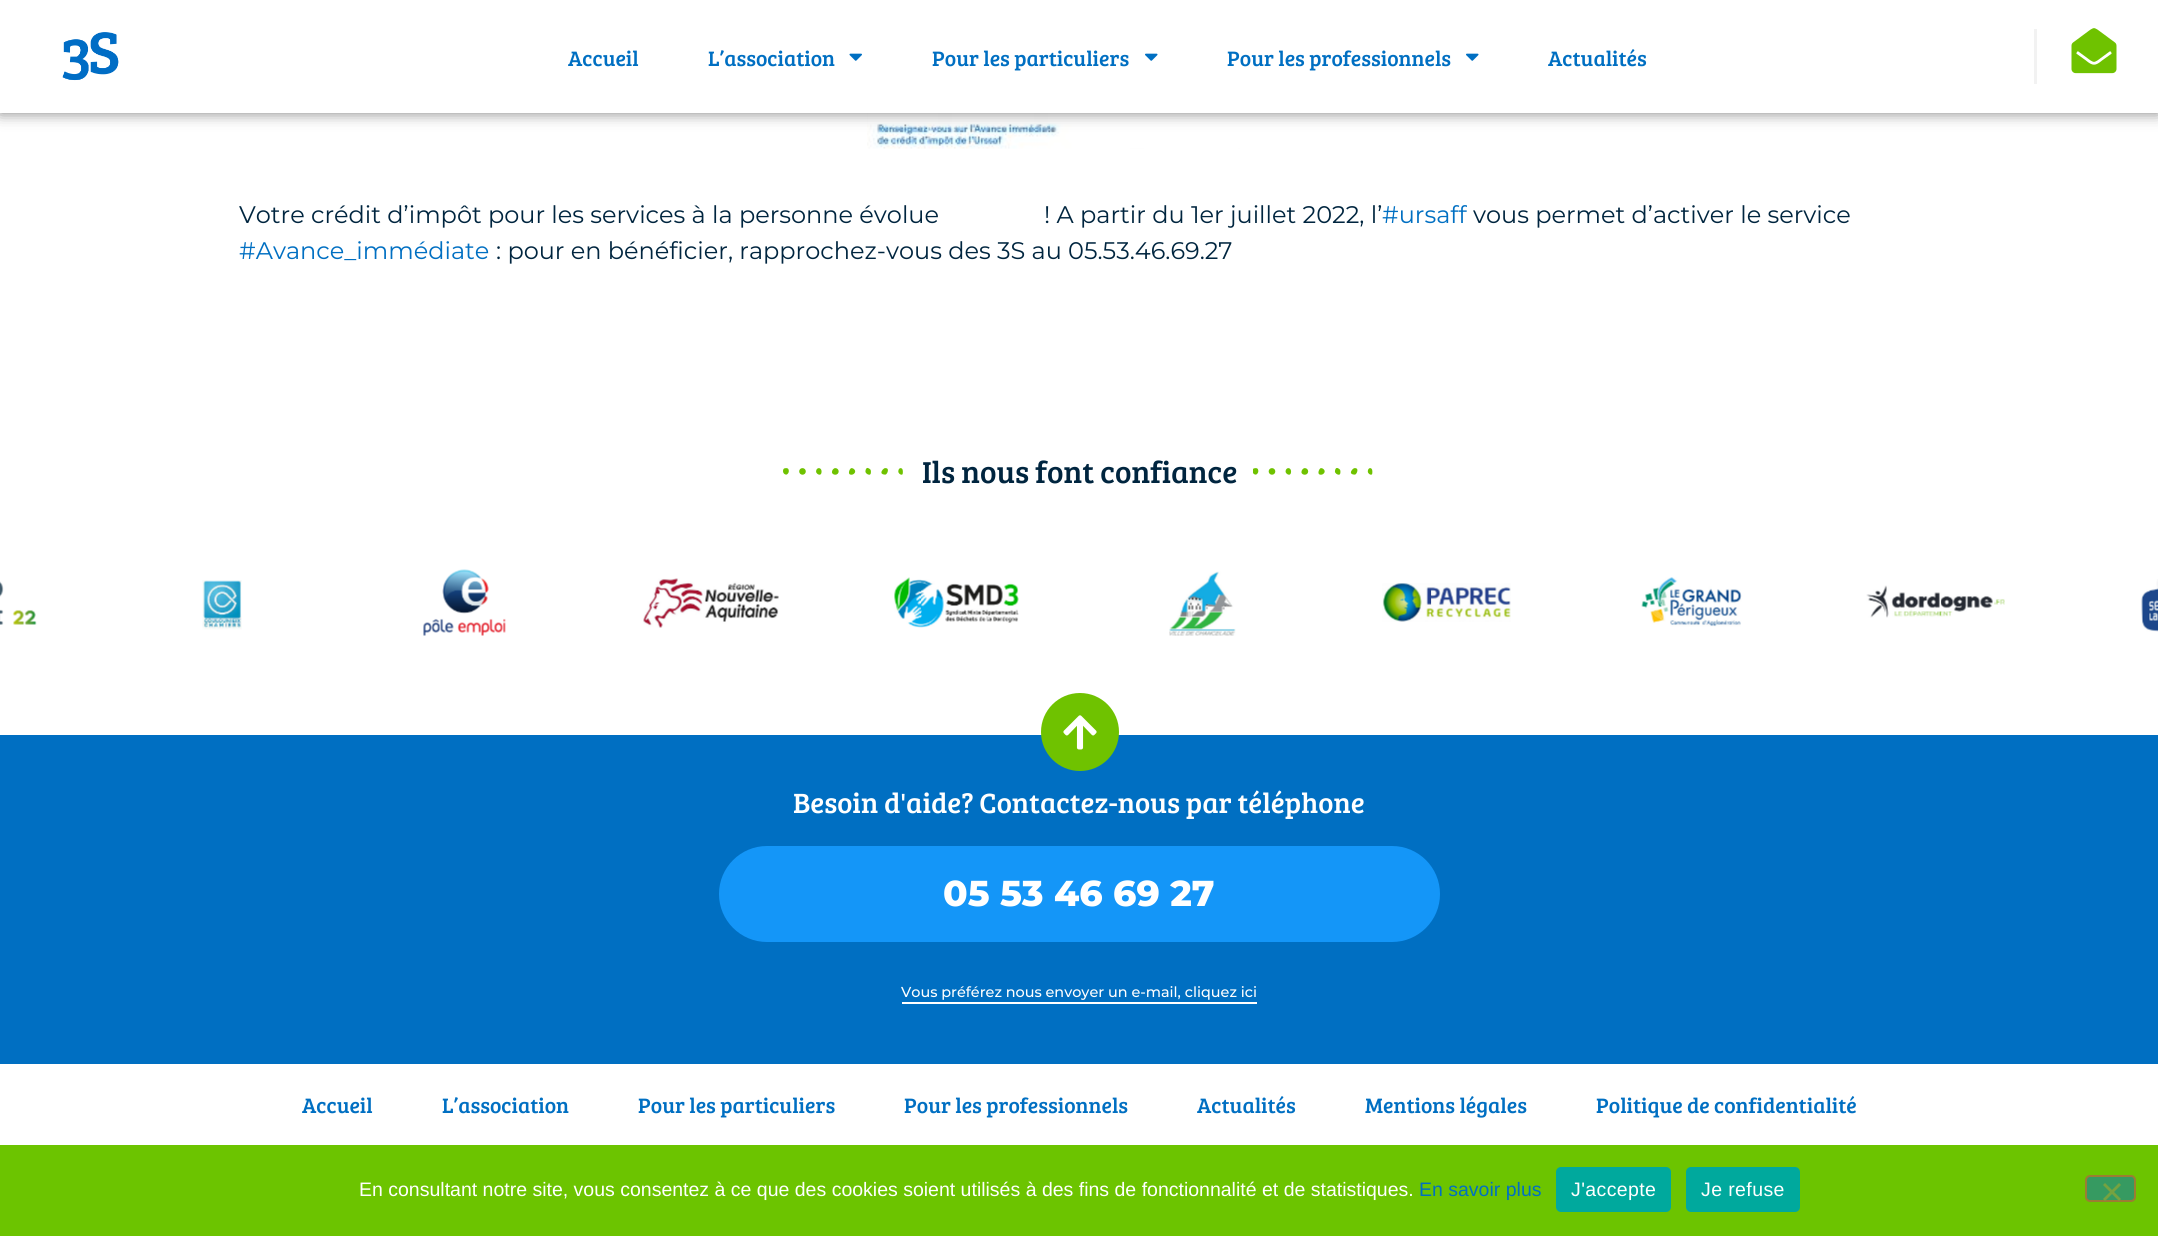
import math
import cairocffi as cairo

surface = cairo.ImageSurface(cairo.FORMAT_RGB24, 2158, 1236)
cr = cairo.Context(surface)
options = cairo.FontOptions()
options.set_hint_metrics(cairo.HINT_METRICS_OFF)
options.set_hint_style(cairo.HINT_STYLE_NONE)
cr.set_font_options(options)
cr.set_miter_limit(4)


def use_color(code):
    cr.set_source_rgb(*(v / 255 for v in bytes.fromhex(code[-6:])))


def spaced_text(x, y, s, letter, word):
    cr.move_to(x, y)
    for ch in s:
        cr.show_text(ch)
        cr.rel_move_to(letter + word * (ch == ' '), 0)


def round_rect(x, y, w, h, r):
    cr.new_sub_path()
    for i, (u, v) in enumerate([(x + w - r, y + h - r), (x + r, y + h - r), (x + r, y + r), (x + w - r, y + r)]):
        cr.arc(u, v, r, i * math.pi / 2, (i + 1) * math.pi / 2)
    cr.close_path()


def shadow(x, y, w, h, r, blur, alpha):
    cr.push_group_with_content(cairo.CONTENT_ALPHA)
    cr.set_operator(cairo.OPERATOR_SOURCE)
    for i in range(15, -16, -2):
        e = blur * i / 6
        if min(w, h) + 2 * e > 0:
            cr.set_source_rgba(0, 0, 0, alpha * math.erfc((i - 1) / 8.5) / 2)
            round_rect(x - e, y - e, w + 2 * e, h + 2 * e, max(0, min(r + e + blur * .6, min(w, h) / 2 + e)))
            cr.fill()
    cr.mask(cr.pop_group())


def picture(path, x, y, w, h):
    cr.save()
    cr.set_source_surface(cairo.ImageSurface.create_from_png(path), x, y)
    cr.rectangle(x, y, w, h)
    cr.fill()
    cr.restore()


use_color("#ffffff")
cr.paint()
picture("img5.png", 867, 113, 373, 36)
use_color("#000000")
shadow(0, 0, 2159, 113, 0, 7.5, 0.5)
use_color("#ffffff")
cr.rectangle(0, 0, 2158, 113)
cr.fill()
picture("img1.png", 62, 32, 57, 49)
cr.select_font_face("Bree Serif")
cr.set_font_size(21.6)
use_color("#006fc2")
cr.move_to(568, 66)
cr.show_text("Accueil")
cr.move_to(708, 66)
cr.show_text("L’association")
picture("img2.png", 849, 53, 13, 8)
cr.move_to(932, 66)
cr.show_text("Pour les particuliers")
picture("img3.png", 1145, 53, 13, 8)
cr.move_to(1227, 66)
cr.show_text("Pour les professionnels")
picture("img3.png", 1466, 53, 13, 8)
cr.move_to(1548, 66)
cr.show_text("Actualités")
use_color("#f2f2f2")
cr.rectangle(2034, 29, 3, 55)
cr.fill()
picture("img4.png", 2071, 28, 46, 46)
cr.select_font_face("Montserrat")
cr.set_font_size(24)
use_color("#00253f")
cr.move_to(239, 223)
cr.show_text("Votre crédit d’impôt pour les services à la personne évolue")
cr.move_to(1044, 223)
cr.show_text("! A partir du 1er juillet 2022, l’")
use_color("#006fc2")
cr.move_to(1382, 223)
cr.show_text("#ursaff")
use_color("#00253f")
cr.move_to(1473, 223)
cr.show_text("vous permet d’activer le service")
use_color("#006fc2")
cr.move_to(239, 259)
cr.show_text("#Avance_immédiate")
use_color("#00253f")
cr.move_to(496, 259)
cr.show_text(": pour en bénéficier, rapprochez-vous des 3S au 05.53.46.69.27")
picture("img6.png", 783, 467, 120, 8)
cr.select_font_face("Bree Serif")
cr.set_font_size(31.25)
cr.move_to(922, 483)
cr.show_text("Ils nous font confiance")
picture("img7.png", 1253, 468, 120, 7)
picture("img8.png", 0, 581, 37, 44)
picture("img9.png", 202, 580, 40, 50)
picture("img10.png", 423, 569, 83, 67)
picture("img11.png", 643, 578, 136, 50)
picture("img12.png", 894, 577, 125, 51)
picture("img13.png", 1169, 571, 67, 65)
picture("img14.png", 1382, 583, 129, 39)
picture("img15.png", 1641, 577, 101, 50)
picture("img16.png", 1866, 585, 139, 33)
picture("img17.png", 2141, 579, 17, 53)
use_color("#006fc2")
cr.rectangle(0, 735, 2158, 329)
cr.fill()
use_color("#6fc200")
cr.arc(1080, 732, 39, 0, 2 * math.pi)
cr.fill()
picture("img18.png", 1063, 715, 34, 35)
cr.set_font_size(28.75)
use_color("#ffffff")
cr.move_to(793, 813)
cr.show_text("Besoin d'aide? Contactez-nous par téléphone")
use_color("#1496f8")
round_rect(719, 846, 721, 96, 48)
cr.fill()
cr.select_font_face("Montserrat ExtraBold")
cr.set_font_size(36)
use_color("#ffffff")
cr.move_to(943, 906)
cr.show_text("05 53 46 69 27")
cr.rectangle(902, 1002, 355, 2)
cr.fill()
cr.select_font_face("Montserrat Medium")
cr.set_font_size(14.4)
cr.move_to(901, 997)
cr.show_text("Vous préférez nous envoyer un e-mail, cliquez ici")
cr.select_font_face("Bree Serif")
cr.set_font_size(21.6)
use_color("#006fc2")
cr.move_to(302, 1113)
cr.show_text("Accueil")
cr.move_to(442, 1113)
cr.show_text("L’association")
cr.move_to(638, 1113)
cr.show_text("Pour les particuliers")
cr.move_to(904, 1113)
cr.show_text("Pour les professionnels")
cr.move_to(1197, 1113)
cr.show_text("Actualités")
cr.move_to(1365, 1113)
cr.show_text("Mentions légales")
cr.move_to(1596, 1113)
cr.show_text("Politique de confidentialité")
use_color("#6cc400")
cr.rectangle(0, 1145, 2158, 91)
cr.fill()
cr.select_font_face("Liberation Sans")
cr.set_font_size(19.5)
use_color("#ffffff")
cr.move_to(359, 1196)
cr.show_text("En consultant notre site, vous consentez à ce que des cookies soient utilisés à des fins de fonctionnalité et de statistiques.")
use_color("#006fc2")
cr.move_to(1419, 1196)
cr.show_text("En savoir plus")
use_color("#00a99d")
round_rect(1556, 1167, 115, 45, 5)
cr.fill()
use_color("#ffffff")
spaced_text(1571, 1196, "J'accepte", 0.4, 0)
use_color("#00a99d")
round_rect(1686, 1167, 114, 45, 5)
cr.fill()
use_color("#ffffff")
spaced_text(1701, 1196, "Je refuse", 0.4, 0)
use_color("#369a61")
round_rect(2086, 1176, 49, 25, 4)
cr.fill_preserve()
use_color("#9c7c33")
cr.stroke()
use_color("#76a240")
cr.new_path()
cr.move_to(2119, 1183)
cr.line_to(2121, 1185)
cr.line_to(2105, 1201)
cr.line_to(2103, 1199)
cr.close_path()
cr.fill()
cr.new_path()
cr.move_to(2103, 1185)
cr.line_to(2105, 1183)
cr.line_to(2121, 1199)
cr.line_to(2119, 1201)
cr.close_path()
cr.fill()
surface.write_to_png("result.png")
